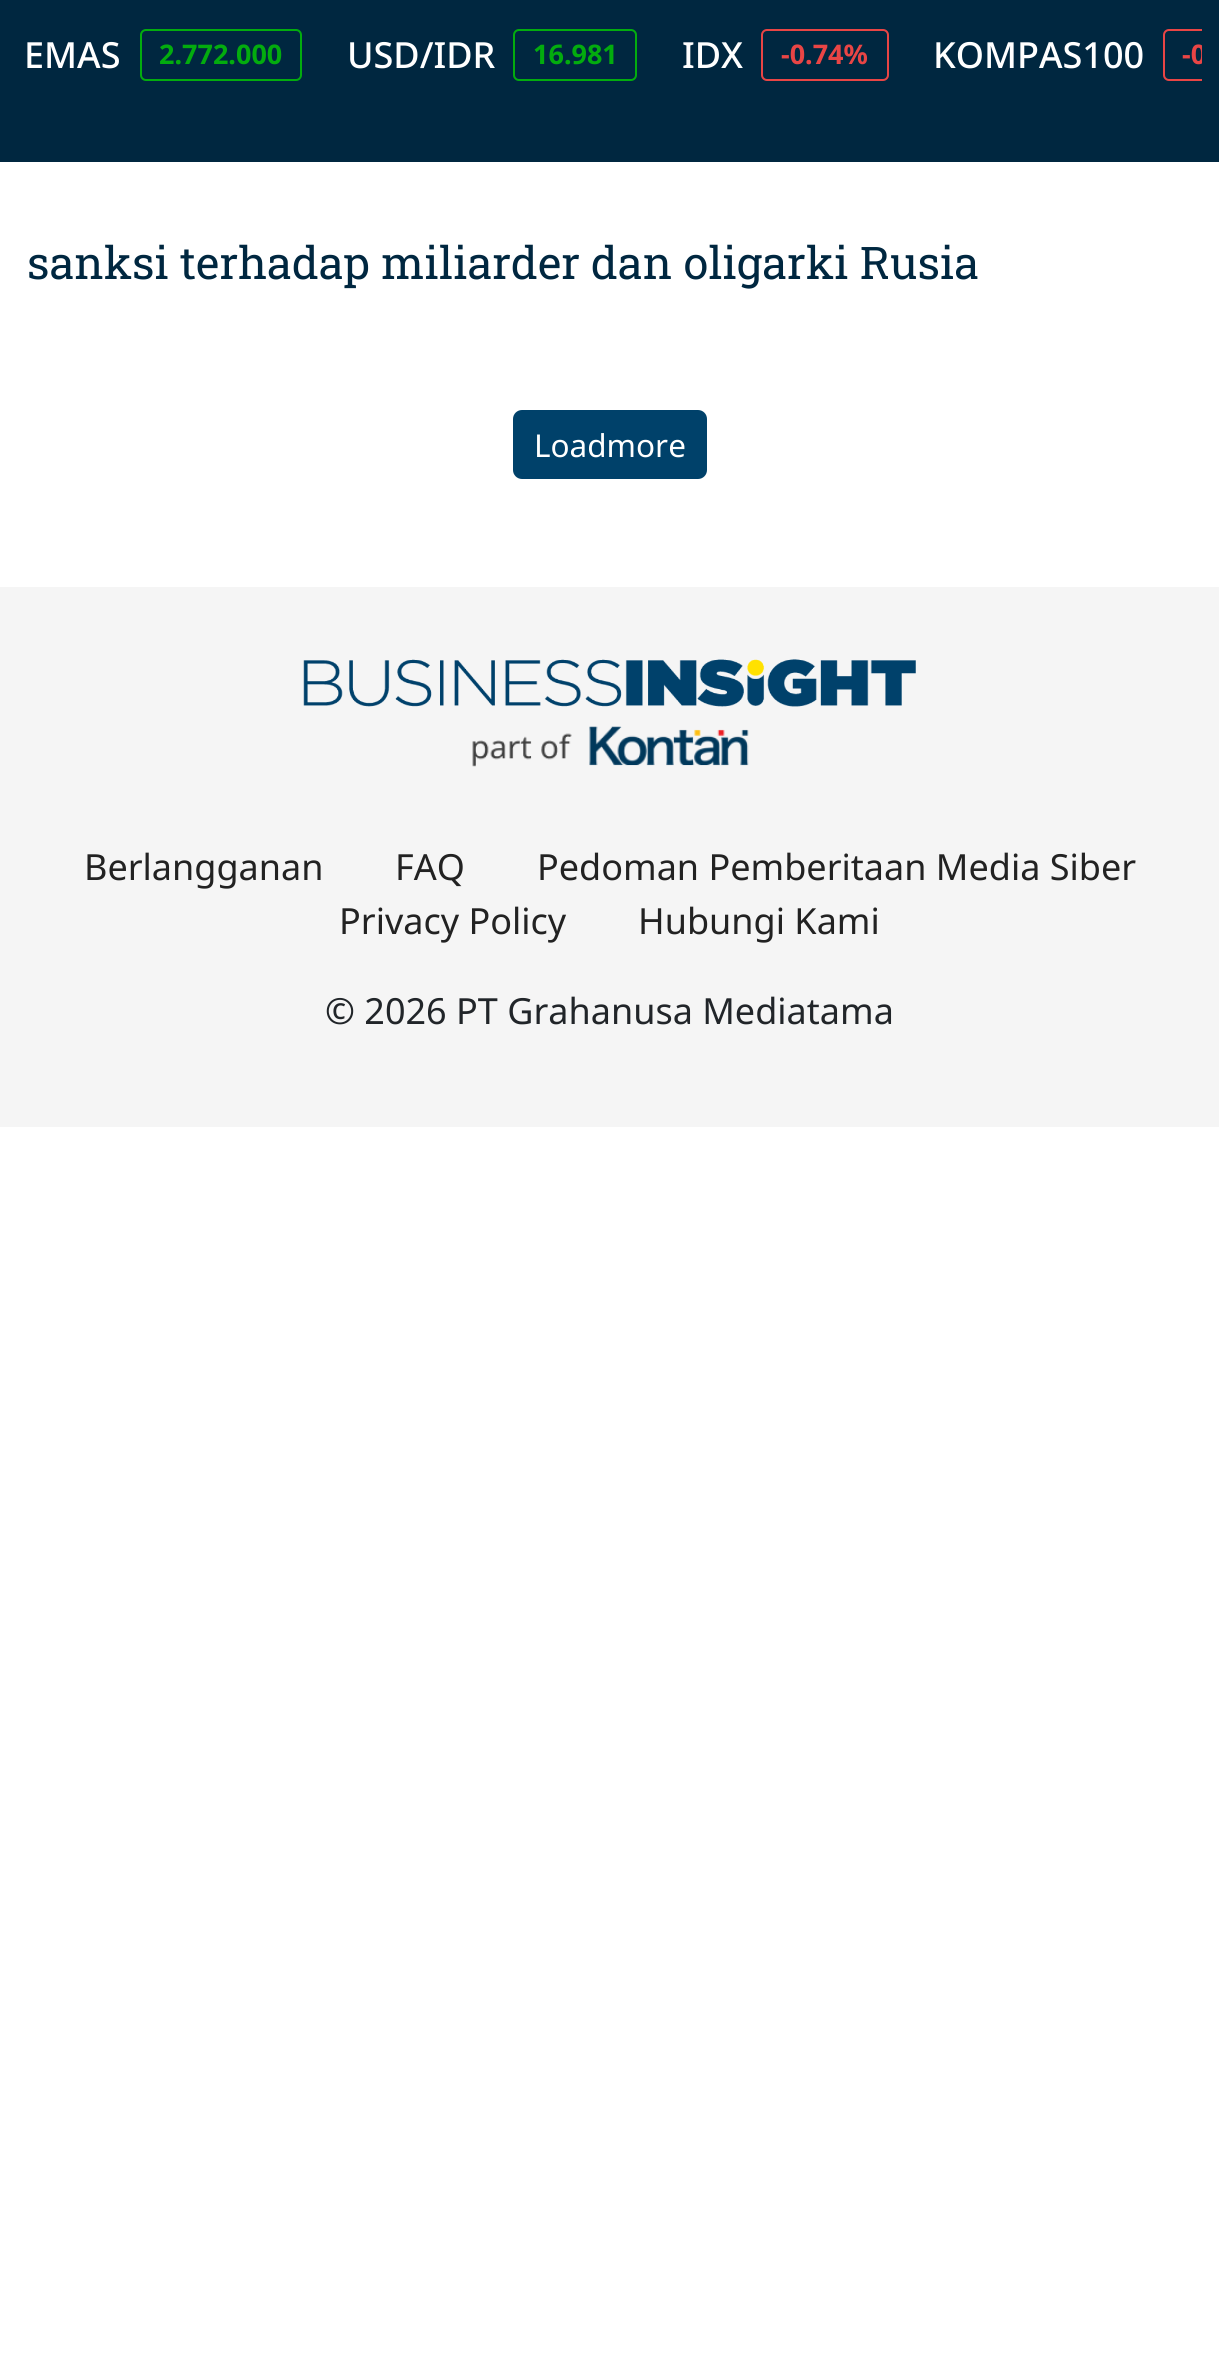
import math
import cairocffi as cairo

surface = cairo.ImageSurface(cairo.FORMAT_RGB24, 1219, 2354)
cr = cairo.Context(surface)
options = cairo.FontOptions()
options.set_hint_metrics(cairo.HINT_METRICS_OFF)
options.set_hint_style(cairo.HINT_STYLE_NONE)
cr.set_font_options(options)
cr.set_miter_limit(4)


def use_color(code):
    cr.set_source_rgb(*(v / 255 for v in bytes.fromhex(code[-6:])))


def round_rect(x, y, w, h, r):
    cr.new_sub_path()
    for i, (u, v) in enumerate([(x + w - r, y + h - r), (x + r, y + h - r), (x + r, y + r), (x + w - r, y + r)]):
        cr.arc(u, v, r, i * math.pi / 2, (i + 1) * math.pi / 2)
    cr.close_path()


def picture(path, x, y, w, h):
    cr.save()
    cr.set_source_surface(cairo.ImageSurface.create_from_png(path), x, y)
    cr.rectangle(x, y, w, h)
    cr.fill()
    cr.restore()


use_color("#ffffff")
cr.paint()
use_color("#002740")
cr.rectangle(0, 0, 1219, 162)
cr.fill()
cr.select_font_face("Noto Sans Medium")
cr.set_font_size(36)
use_color("#ffffff")
cr.move_to(24, 68)
cr.show_text("EMAS")
round_rect(141, 30, 160, 50, 5)
use_color("#03ac0e")
cr.stroke()
cr.select_font_face("Noto Sans", cairo.FONT_SLANT_NORMAL, cairo.FONT_WEIGHT_BOLD)
cr.set_font_size(27)
cr.move_to(159, 64)
cr.show_text("2.772.000")
cr.select_font_face("Noto Sans Medium")
cr.set_font_size(36)
use_color("#ffffff")
cr.move_to(347, 68)
cr.show_text("USD/IDR")
round_rect(514, 30, 122, 50, 5)
use_color("#03ac0e")
cr.stroke()
cr.select_font_face("Noto Sans", cairo.FONT_SLANT_NORMAL, cairo.FONT_WEIGHT_BOLD)
cr.set_font_size(27)
cr.move_to(533, 64)
cr.show_text("16.981")
cr.select_font_face("Noto Sans Medium")
cr.set_font_size(36)
use_color("#ffffff")
cr.move_to(682, 68)
cr.show_text("IDX")
round_rect(762, 30, 126, 50, 5)
use_color("#e94545")
cr.stroke()
cr.select_font_face("Noto Sans", cairo.FONT_SLANT_NORMAL, cairo.FONT_WEIGHT_BOLD)
cr.set_font_size(27)
cr.move_to(781, 64)
cr.show_text("-0.74%")
cr.select_font_face("Noto Sans Medium")
cr.set_font_size(36)
use_color("#ffffff")
cr.move_to(933, 68)
cr.show_text("KOMPAS100")
cr.save()
cr.rectangle(18, 27, 1184, 108)
cr.clip()
round_rect(1164, 30, 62, 50, 5)
use_color("#e94545")
cr.stroke()
cr.select_font_face("Noto Sans", cairo.FONT_SLANT_NORMAL, cairo.FONT_WEIGHT_BOLD)
cr.set_font_size(27)
cr.move_to(1182, 64)
cr.show_text("-0")
cr.restore()
cr.select_font_face("Roboto Slab")
cr.set_font_size(45)
use_color("#002740")
cr.move_to(27, 279)
cr.show_text("sanksi terhadap miliarder dan oligarki Rusia")
use_color("#00416a")
round_rect(513, 410, 194, 69, 9)
cr.fill()
cr.select_font_face("Noto Sans")
cr.set_font_size(31.5)
use_color("#ffffff")
cr.move_to(534, 457)
cr.show_text("Loadmore")
use_color("#f5f5f5")
cr.rectangle(0, 587, 1219, 540)
cr.fill()
picture("img1.png", 303, 659, 613, 48)
picture("img2.png", 472, 726, 277, 41)
cr.set_font_size(36)
use_color("#222222")
cr.move_to(84, 880)
cr.show_text("Berlangganan")
cr.move_to(395, 880)
cr.show_text("FAQ")
cr.move_to(537, 880)
cr.show_text("Pedoman Pemberitaan Media Siber")
cr.move_to(339, 934)
cr.show_text("Privacy Policy")
cr.move_to(638, 934)
cr.show_text("Hubungi Kami")
use_color("#212529")
cr.move_to(325, 1024)
cr.show_text("© 2026 PT Grahanusa Mediatama")
surface.write_to_png("result.png")
